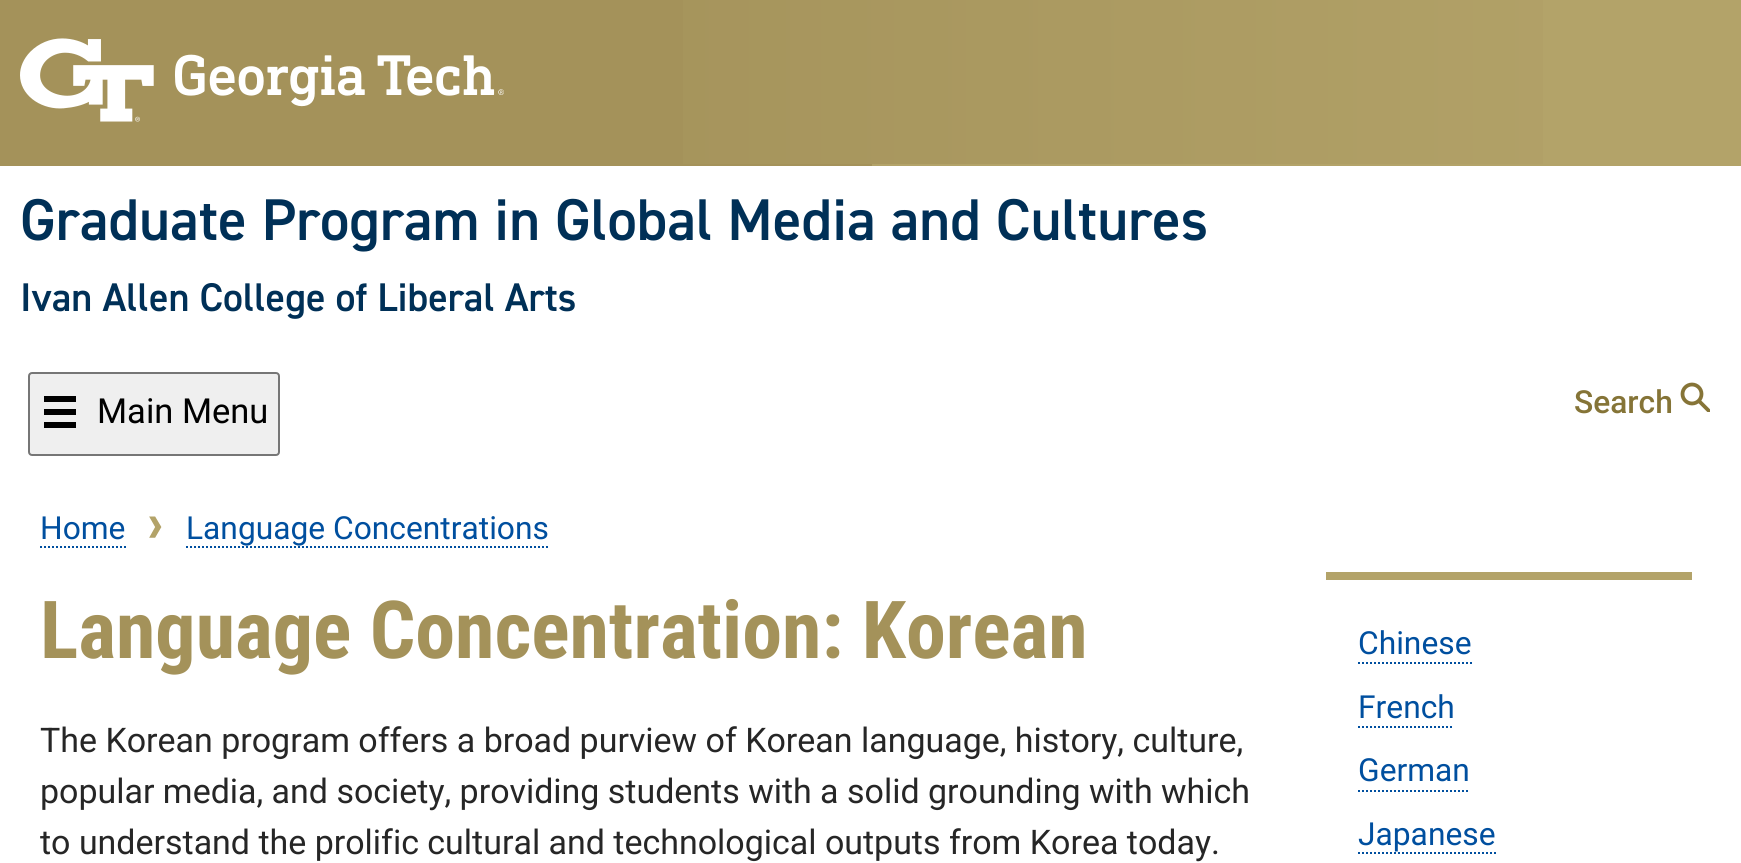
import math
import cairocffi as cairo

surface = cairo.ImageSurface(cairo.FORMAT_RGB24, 1741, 863)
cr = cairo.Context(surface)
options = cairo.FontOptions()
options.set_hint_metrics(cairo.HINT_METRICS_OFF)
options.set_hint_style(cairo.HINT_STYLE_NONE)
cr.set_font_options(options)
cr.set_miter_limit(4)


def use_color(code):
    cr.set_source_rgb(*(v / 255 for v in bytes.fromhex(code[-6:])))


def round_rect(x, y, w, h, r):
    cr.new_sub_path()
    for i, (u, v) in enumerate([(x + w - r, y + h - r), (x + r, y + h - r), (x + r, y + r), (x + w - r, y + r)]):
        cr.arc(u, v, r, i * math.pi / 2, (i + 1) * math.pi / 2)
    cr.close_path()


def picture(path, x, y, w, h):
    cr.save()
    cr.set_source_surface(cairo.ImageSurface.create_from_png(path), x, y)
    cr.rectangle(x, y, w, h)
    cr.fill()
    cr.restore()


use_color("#ffffff")
cr.paint()
use_color("#a4925a")
cr.rectangle(0, 0, 872, 166)
cr.fill()
use_color("#b3a369")
cr.rectangle(872, 0, 869, 166)
cr.fill()
picture("img1.png", 20, 38, 484, 84)
gradient = cairo.LinearGradient(504, 82, 1722, 82)
gradient.add_color_stop_rgba(0, 0.643, 0.573, 0.353, 1)
gradient.add_color_stop_rgba(1, 0.702, 0.639, 0.412, 1)
cr.set_source(gradient)
cr.rectangle(683, 0, 860, 164)
cr.fill()
cr.select_font_face("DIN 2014 SemiBold")
cr.set_font_size(59)
use_color("#003057")
cr.move_to(20, 240)
cr.show_text("Graduate Program in Global Media and Cultures")
cr.set_font_size(40.1)
cr.move_to(20, 311)
cr.show_text("Ivan Allen College of Liberal Arts")
use_color("#efefef")
round_rect(29, 373, 250, 82, 3)
cr.fill_preserve()
use_color("#767676")
cr.stroke()
use_color("#000000")
cr.rectangle(44, 396, 32, 6)
cr.fill()
cr.rectangle(44, 409, 32, 6)
cr.fill()
cr.rectangle(44, 422, 32, 6)
cr.fill()
cr.select_font_face("Roboto")
cr.set_font_size(34.5)
cr.move_to(97, 423)
cr.show_text("Main Menu")
cr.select_font_face("Roboto Medium")
cr.set_font_size(31.75)
use_color("#857437")
cr.move_to(1574, 413)
cr.show_text("Search")
cr.new_path()
cr.arc(1692, 394, 9.5, 0, 2 * math.pi)
use_color("#867437")
cr.set_line_width(3.8)
cr.stroke()
cr.save()
cr.rectangle(1680, 382, 30, 30)
cr.clip()
cr.new_path()
cr.move_to(1698, 400)
cr.line_to(1710, 412)
cr.stroke()
cr.restore()
cr.select_font_face("Roboto")
use_color("#004f9f")
cr.move_to(40, 539)
cr.show_text("Home")
cr.new_path()
cr.move_to(40, 547)
cr.line_to(126, 547)
cr.set_line_width(2)
cr.set_dash([2, 2])
cr.stroke()
picture("img2.png", 149, 516, 13, 22)
cr.move_to(186, 539)
cr.show_text("Language Concentrations")
cr.new_path()
cr.move_to(186, 547)
cr.line_to(548, 547)
cr.stroke()
cr.select_font_face("Roboto Condensed", cairo.FONT_SLANT_NORMAL, cairo.FONT_WEIGHT_BOLD)
cr.set_font_size(80)
use_color("#a4925a")
cr.move_to(40, 658)
cr.show_text("Language Concentration: Korean")
cr.select_font_face("Roboto")
cr.set_font_size(33.95)
use_color("#262626")
cr.move_to(40, 752)
cr.show_text("The Korean program offers a broad purview of Korean language, history, culture,")
cr.move_to(40, 803)
cr.show_text("popular media, and society, providing students with a solid grounding with which")
cr.move_to(40, 854)
cr.show_text("to understand the prolific cultural and technological outputs from Korea today.")
use_color("#b3a369")
cr.rectangle(1326, 572, 366, 8)
cr.fill()
cr.set_font_size(31.75)
use_color("#004f9f")
cr.move_to(1358, 654)
cr.show_text("Chinese")
cr.new_path()
cr.move_to(1358, 663)
cr.line_to(1472, 663)
cr.stroke()
cr.move_to(1358, 718)
cr.show_text("French")
cr.new_path()
cr.move_to(1358, 727)
cr.line_to(1454, 727)
cr.stroke()
cr.move_to(1358, 781)
cr.show_text("German")
cr.new_path()
cr.move_to(1358, 791)
cr.line_to(1470, 791)
cr.stroke()
cr.move_to(1358, 845)
cr.show_text("Japanese")
cr.new_path()
cr.move_to(1358, 853)
cr.line_to(1496, 853)
cr.stroke()
surface.write_to_png("result.png")
